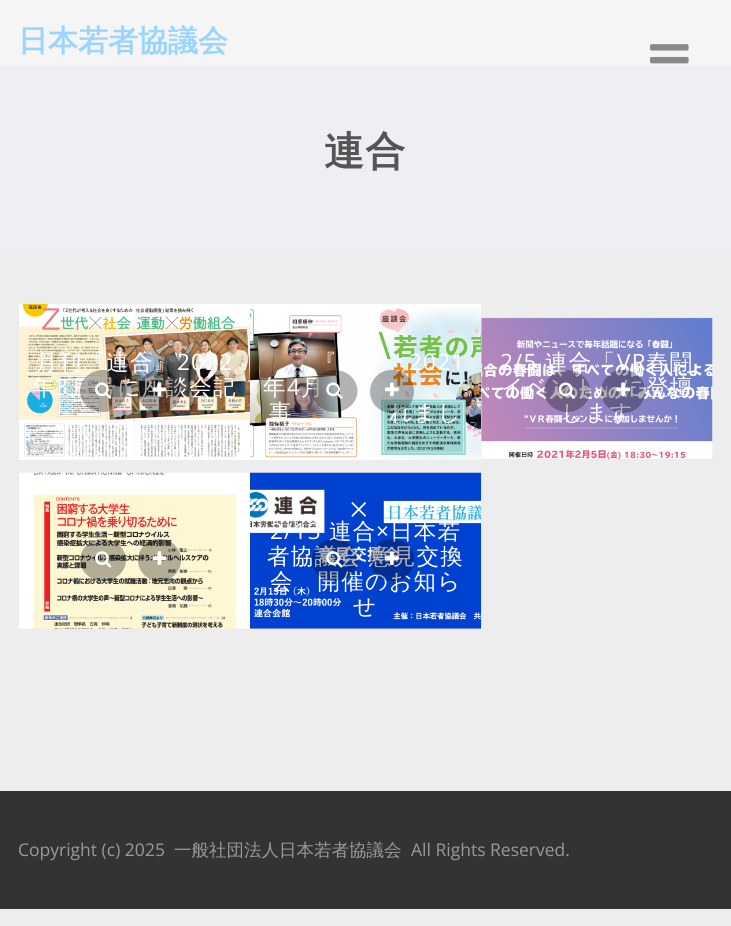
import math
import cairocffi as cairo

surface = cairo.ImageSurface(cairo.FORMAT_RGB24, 731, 926)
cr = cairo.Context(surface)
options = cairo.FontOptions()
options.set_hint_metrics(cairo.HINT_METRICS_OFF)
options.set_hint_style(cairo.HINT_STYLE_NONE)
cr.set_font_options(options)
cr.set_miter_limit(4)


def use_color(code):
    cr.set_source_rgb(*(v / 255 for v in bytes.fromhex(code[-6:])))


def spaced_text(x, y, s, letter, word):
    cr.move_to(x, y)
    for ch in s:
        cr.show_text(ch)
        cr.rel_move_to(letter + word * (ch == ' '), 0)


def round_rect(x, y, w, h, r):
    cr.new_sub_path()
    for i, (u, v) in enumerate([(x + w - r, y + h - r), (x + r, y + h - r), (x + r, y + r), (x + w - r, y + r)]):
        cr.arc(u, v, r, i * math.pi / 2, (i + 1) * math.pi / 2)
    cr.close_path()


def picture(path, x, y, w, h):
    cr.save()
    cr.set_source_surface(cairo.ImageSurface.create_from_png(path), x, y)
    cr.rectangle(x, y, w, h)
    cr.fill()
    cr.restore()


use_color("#ededed")
cr.paint()
use_color("#f5f5f5")
cr.rectangle(0, 0, 731, 66)
cr.fill()
cr.select_font_face("WenQuanYi Zen Hei", cairo.FONT_SLANT_NORMAL, cairo.FONT_WEIGHT_BOLD)
cr.set_font_size(30)
use_color("#9bd5ff")
cr.move_to(18, 51)
cr.show_text("日本若者協議会")
picture("img1.png", 650, 44, 39, 20)
use_color("#eeeff5")
cr.rectangle(0, 66, 731, 188)
cr.fill()
cr.set_font_size(40)
use_color("#555555")
spaced_text(324, 165, "連合", 1.25, 0)
picture("img2.png", 19, 303, 231, 157)
cr.select_font_face("WenQuanYi Zen Hei Medium")
cr.set_font_size(22.5)
use_color("#ffffff")
spaced_text(35, 370, "月刊『連合』", 1.25, 0)
spaced_text(70, 395, "月号に座談会記", 1.25, 0)
cr.set_source_rgba(0, 0, 0, 0.3)
cr.new_path()
cr.move_to(103, 370)
cr.curve_to(115.5, 370, 126, 379.5, 126, 391)
cr.curve_to(126, 402.5, 115.5, 412, 103, 412)
cr.curve_to(90.5, 412, 80, 402.5, 80, 391)
cr.curve_to(80, 379.5, 90.5, 370, 103, 370)
cr.close_path()
cr.fill()
picture("img3.png", 95, 382, 17, 17)
cr.select_font_face("Open Sans")
use_color("#ffffff")
spaced_text(177, 370, "2022", 1.25, 0)
cr.set_source_rgba(0, 0, 0, 0.3)
cr.new_path()
cr.arc(159.5, 391.5, 21.5, 0, 2 * math.pi)
cr.fill()
picture("img4.png", 152, 382, 15, 15)
cr.select_font_face("WenQuanYi Zen Hei Medium")
use_color("#ffffff")
spaced_text(32, 395, "年", 1.25, 0)
cr.select_font_face("Open Sans")
spaced_text(55, 395, "3", 1.25, 0)
picture("img5.png", 250, 304, 232, 156)
cr.select_font_face("WenQuanYi Zen Hei Medium")
spaced_text(301, 395, "月", 1.25, 0)
cr.set_source_rgba(0, 0, 0, 0.3)
cr.new_path()
cr.move_to(334.5, 370)
cr.curve_to(347, 370, 357.5, 379.5, 357.5, 391)
cr.curve_to(357.5, 402.5, 347, 412, 334.5, 412)
cr.curve_to(322, 412, 311.5, 402.5, 311.5, 391)
cr.curve_to(311.5, 379.5, 322, 370, 334.5, 370)
cr.close_path()
cr.fill()
picture("img6.png", 326, 382, 17, 17)
cr.select_font_face("Open Sans")
use_color("#ffffff")
spaced_text(409, 370, "2021", 1.25, 0)
cr.select_font_face("WenQuanYi Zen Hei Medium")
spaced_text(389, 420, "れまし", 1.25, 0)
cr.set_source_rgba(0, 0, 0, 0.3)
round_rect(370, 370, 44, 43, 21.5)
cr.fill()
picture("img7.png", 385, 382, 14, 15)
use_color("#ffffff")
spaced_text(314, 370, "『", 1.25, 0)
spaced_text(263, 395, "年", 1.25, 0)
cr.select_font_face("Open Sans")
spaced_text(287, 395, "4", 1.25, 0)
cr.select_font_face("WenQuanYi Zen Hei Medium")
spaced_text(269, 420, "事", 1.25, 0)
picture("img8.png", 481, 317, 232, 143)
spaced_text(545, 370, "連合「", 1.25, 0)
spaced_text(501, 395, "イベント」に登壇", 1.25, 0)
spaced_text(561, 420, "します", 1.25, 0)
cr.set_source_rgba(0, 0, 0, 0.3)
cr.new_path()
cr.move_to(567, 370)
cr.curve_to(579.5, 370, 590, 379.5, 590, 391)
cr.curve_to(590, 402.5, 579.5, 412, 567, 412)
cr.curve_to(554.5, 412, 544, 402.5, 544, 391)
cr.curve_to(544, 379.5, 554.5, 370, 567, 370)
cr.close_path()
cr.fill()
picture("img9.png", 558, 382, 17, 17)
round_rect(601, 370, 44, 43, 21.5)
cr.fill()
picture("img10.png", 616, 382, 14, 15)
cr.select_font_face("Open Sans")
use_color("#ffffff")
spaced_text(500, 370, "2/5", 1.25, 0)
spaced_text(617, 370, "VR", 1.25, 0)
cr.select_font_face("WenQuanYi Zen Hei Medium")
spaced_text(646, 370, "春闘", 1.25, 0)
picture("img11.png", 19, 472, 231, 157)
cr.set_source_rgba(0, 0, 0, 0.3)
cr.new_path()
cr.move_to(103, 539)
cr.curve_to(115.5, 539, 126, 548.5, 126, 560)
cr.curve_to(126, 571.5, 115.5, 581, 103, 581)
cr.curve_to(90.5, 581, 80, 571.5, 80, 560)
cr.curve_to(80, 548.5, 90.5, 539, 103, 539)
cr.close_path()
cr.fill()
picture("img12.png", 95, 551, 17, 17)
round_rect(138, 539, 43, 42, 21)
cr.fill()
picture("img13.png", 152, 551, 15, 14)
picture("img14.png", 250, 472, 232, 157)
cr.select_font_face("Open Sans")
use_color("#ffffff")
spaced_text(270, 539, "2/13", 1.25, 0)
cr.select_font_face("WenQuanYi Zen Hei Medium")
spaced_text(329, 539, "連合", 1.25, 0)
spaced_text(267, 564, "者協議会 意見交換", 1.25, -1)
spaced_text(270, 589, "会　開催のお知ら", 1.25, 0)
cr.set_source_rgba(0, 0, 0, 0.3)
cr.new_path()
cr.move_to(334.5, 539)
cr.curve_to(347, 539, 357.5, 548.5, 357.5, 560)
cr.curve_to(357.5, 571.5, 347, 581, 334.5, 581)
cr.curve_to(322, 581, 311.5, 571.5, 311.5, 560)
cr.curve_to(311.5, 548.5, 322, 539, 334.5, 539)
cr.close_path()
cr.fill()
picture("img15.png", 326, 551, 17, 17)
use_color("#ffffff")
spaced_text(390, 539, "日本若", 1.25, 0)
cr.set_source_rgba(0, 0, 0, 0.3)
round_rect(370, 539, 44, 42, 21)
cr.fill()
picture("img16.png", 385, 551, 14, 14)
cr.select_font_face("Open Sans")
use_color("#ffffff")
spaced_text(376, 539, "×", 1.25, 0)
cr.select_font_face("WenQuanYi Zen Hei Medium")
spaced_text(353, 614, "せ", 1.25, 0)
use_color("#333333")
cr.rectangle(0, 791, 731, 118)
cr.fill()
cr.select_font_face("Open Sans")
cr.set_font_size(17.5)
use_color("#999999")
cr.move_to(18, 856)
cr.show_text("Copyright (c) 2025")
cr.select_font_face("WenQuanYi Zen Hei Medium")
cr.move_to(174, 856)
cr.show_text("一般社団法人日本若者協議会")
cr.select_font_face("Open Sans")
cr.move_to(411, 856)
cr.show_text("All Rights Reserved.")
surface.write_to_png("result.png")
